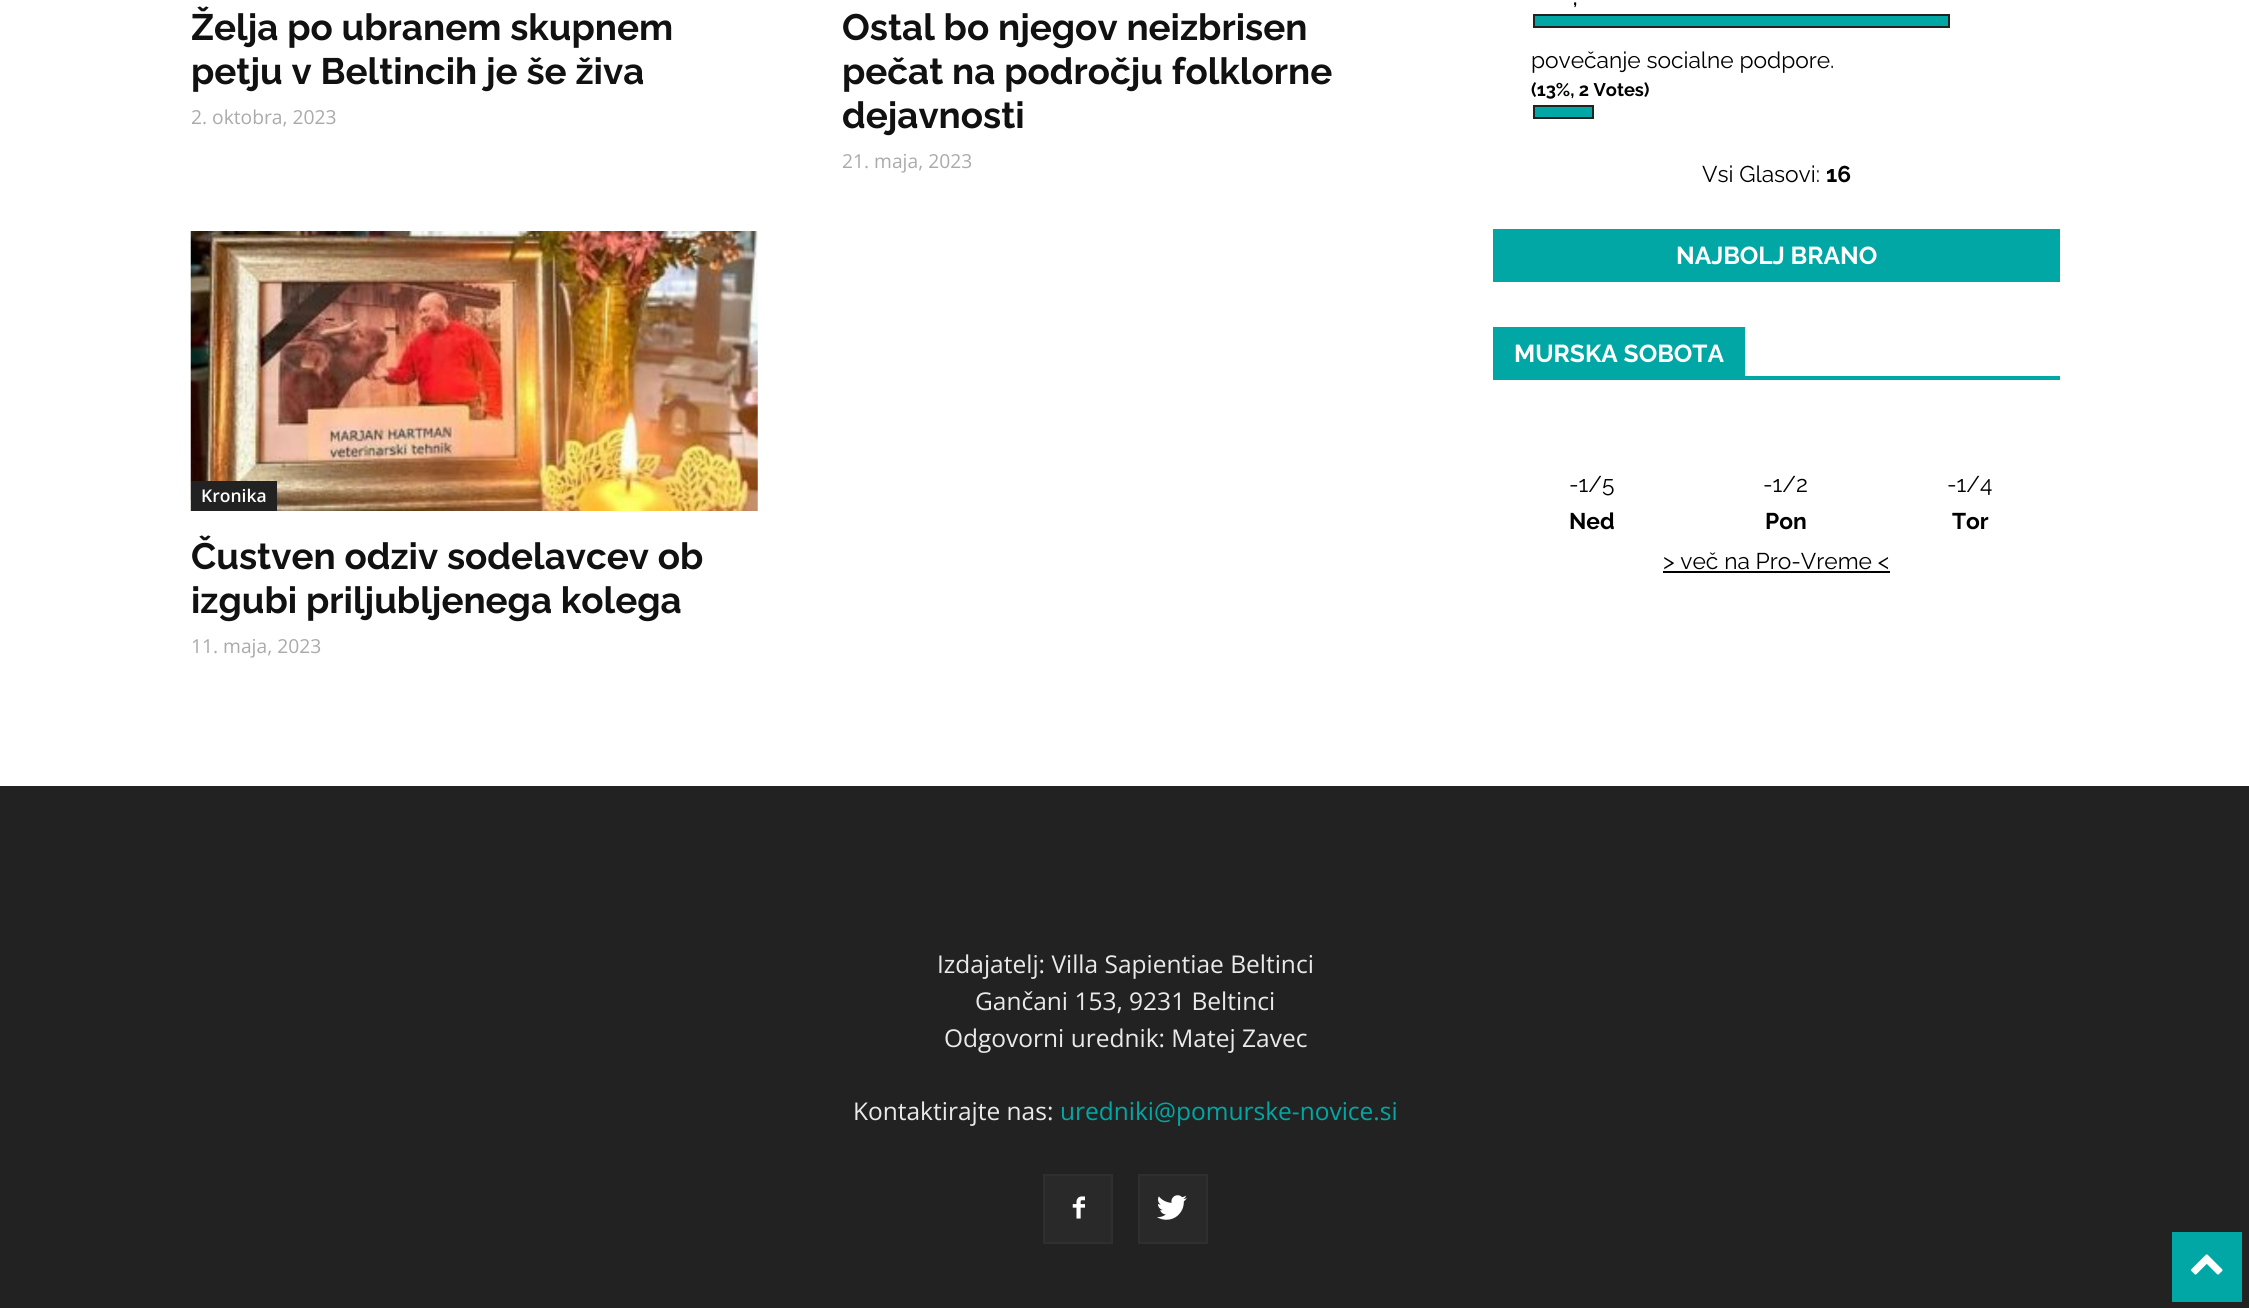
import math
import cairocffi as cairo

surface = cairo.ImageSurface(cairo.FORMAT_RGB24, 2249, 1308)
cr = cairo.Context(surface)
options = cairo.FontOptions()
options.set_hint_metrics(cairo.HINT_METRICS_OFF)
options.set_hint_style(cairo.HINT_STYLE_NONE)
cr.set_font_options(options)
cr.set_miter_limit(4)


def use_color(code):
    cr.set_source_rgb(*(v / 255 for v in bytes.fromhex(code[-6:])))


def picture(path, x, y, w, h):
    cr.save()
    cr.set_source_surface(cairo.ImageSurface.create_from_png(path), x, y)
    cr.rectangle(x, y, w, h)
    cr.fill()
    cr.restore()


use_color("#ffffff")
cr.paint()
cr.select_font_face("Raleway", cairo.FONT_SLANT_NORMAL, cairo.FONT_WEIGHT_BOLD)
cr.set_font_size(36.75)
use_color("#111111")
cr.move_to(191, 40)
cr.show_text("Želja po ubranem skupnem")
cr.move_to(191, 84)
cr.show_text("petju v Beltincih je še živa")
cr.select_font_face("Open Sans")
cr.set_font_size(19.25)
use_color("#aaaaaa")
cr.move_to(191, 124)
cr.show_text("2. oktobra, 2023")
cr.select_font_face("Raleway", cairo.FONT_SLANT_NORMAL, cairo.FONT_WEIGHT_BOLD)
cr.set_font_size(36.75)
use_color("#111111")
cr.move_to(842, 40)
cr.show_text("Ostal bo njegov neizbrisen")
cr.move_to(842, 84)
cr.show_text("pečat na področju folklorne")
cr.move_to(842, 128)
cr.show_text("dejavnosti")
cr.select_font_face("Open Sans")
cr.set_font_size(19.25)
use_color("#aaaaaa")
cr.move_to(842, 168)
cr.show_text("21. maja, 2023")
picture("img1.png", 190, 231, 568, 280)
use_color("#222222")
cr.rectangle(191, 481, 86, 30)
cr.fill()
cr.select_font_face("Open Sans SemiBold")
cr.set_font_size(17.5)
use_color("#ffffff")
cr.move_to(201, 502)
cr.show_text("Kronika")
cr.select_font_face("Raleway", cairo.FONT_SLANT_NORMAL, cairo.FONT_WEIGHT_BOLD)
cr.set_font_size(36.75)
use_color("#111111")
cr.move_to(191, 569)
cr.show_text("Čustven odziv sodelavcev ob")
cr.move_to(191, 613)
cr.show_text("izgubi priljubljenega kolega")
cr.select_font_face("Open Sans")
cr.set_font_size(19.25)
use_color("#aaaaaa")
cr.move_to(191, 653)
cr.show_text("11. maja, 2023")
cr.select_font_face("Raleway", cairo.FONT_SLANT_NORMAL, cairo.FONT_WEIGHT_BOLD)
cr.set_font_size(18.25)
use_color("#000000")
cr.move_to(1573, 5)
cr.show_text(",")
use_color("#00a7a4")
cr.rectangle(1534, 15, 415, 12)
cr.fill_preserve()
use_color("#222222")
cr.stroke()
cr.select_font_face("Raleway")
cr.set_font_size(22.75)
use_color("#000000")
cr.move_to(1531, 68)
cr.show_text("povečanje socialne podpore.")
cr.select_font_face("Raleway", cairo.FONT_SLANT_NORMAL, cairo.FONT_WEIGHT_BOLD)
cr.set_font_size(18.25)
cr.move_to(1531, 96)
cr.show_text("(13%, 2 Votes)")
use_color("#00a7a4")
cr.rectangle(1534, 106, 59, 12)
cr.fill_preserve()
use_color("#222222")
cr.stroke()
cr.select_font_face("Raleway")
cr.set_font_size(22.75)
use_color("#000000")
cr.move_to(1702, 182)
cr.show_text("Vsi Glasovi:")
cr.select_font_face("Raleway", cairo.FONT_SLANT_NORMAL, cairo.FONT_WEIGHT_BOLD)
cr.move_to(1826, 182)
cr.show_text("16")
use_color("#00a7a4")
cr.rectangle(1493, 229, 567, 53)
cr.fill()
cr.set_font_size(24.5)
use_color("#ffffff")
cr.move_to(1676, 264)
cr.show_text("NAJBOLJ BRANO")
use_color("#00a7a4")
cr.rectangle(1493, 376, 567, 4)
cr.fill()
cr.rectangle(1493, 327, 252, 49)
cr.fill()
use_color("#ffffff")
cr.move_to(1514, 362)
cr.show_text("MURSKA SOBOTA")
cr.select_font_face("Raleway")
cr.set_font_size(22.75)
use_color("#000000")
cr.move_to(1569, 492)
cr.show_text("-1/5")
cr.select_font_face("Raleway", cairo.FONT_SLANT_NORMAL, cairo.FONT_WEIGHT_BOLD)
cr.move_to(1569, 529)
cr.show_text("Ned")
cr.select_font_face("Raleway")
cr.move_to(1763, 492)
cr.show_text("-1/2")
cr.select_font_face("Raleway", cairo.FONT_SLANT_NORMAL, cairo.FONT_WEIGHT_BOLD)
cr.move_to(1765, 529)
cr.show_text("Pon")
cr.select_font_face("Raleway")
cr.move_to(1947, 492)
cr.show_text("-1/4")
cr.select_font_face("Raleway", cairo.FONT_SLANT_NORMAL, cairo.FONT_WEIGHT_BOLD)
cr.move_to(1952, 529)
cr.show_text("Tor")
cr.select_font_face("Raleway")
cr.move_to(1663, 569)
cr.show_text("> več na Pro-Vreme <")
cr.rectangle(1663, 571, 227, 2)
cr.fill()
use_color("#222222")
cr.rectangle(0, 786, 2249, 522)
cr.fill()
cr.select_font_face("Open Sans")
cr.set_font_size(24.5)
use_color("#eaeaea")
cr.move_to(937, 973)
cr.show_text("Izdajatelj: Villa Sapientiae Beltinci")
cr.move_to(975, 1010)
cr.show_text("Gančani 153, 9231 Beltinci")
cr.move_to(944, 1047)
cr.show_text("Odgovorni urednik: Matej Zavec")
cr.move_to(853, 1120)
cr.show_text("Kontaktirajte nas:")
use_color("#00a7a4")
cr.move_to(1060, 1120)
cr.show_text("uredniki@pomurske-novice.si")
use_color("#292929")
cr.rectangle(1045, 1176, 66, 66)
cr.fill()
picture("img2.png", 1072, 1196, 13, 23)
cr.rectangle(1044, 1175, 68, 68)
use_color("#2f2f2f")
cr.stroke()
use_color("#292929")
cr.rectangle(1140, 1176, 66, 66)
cr.fill()
picture("img3.png", 1157, 1195, 30, 25)
cr.rectangle(1139, 1175, 68, 68)
use_color("#2f2f2f")
cr.stroke()
use_color("#00a7a4")
cr.rectangle(2172, 1232, 70, 70)
cr.fill()
picture("img4.png", 2191, 1254, 32, 21)
surface.write_to_png("result.png")
